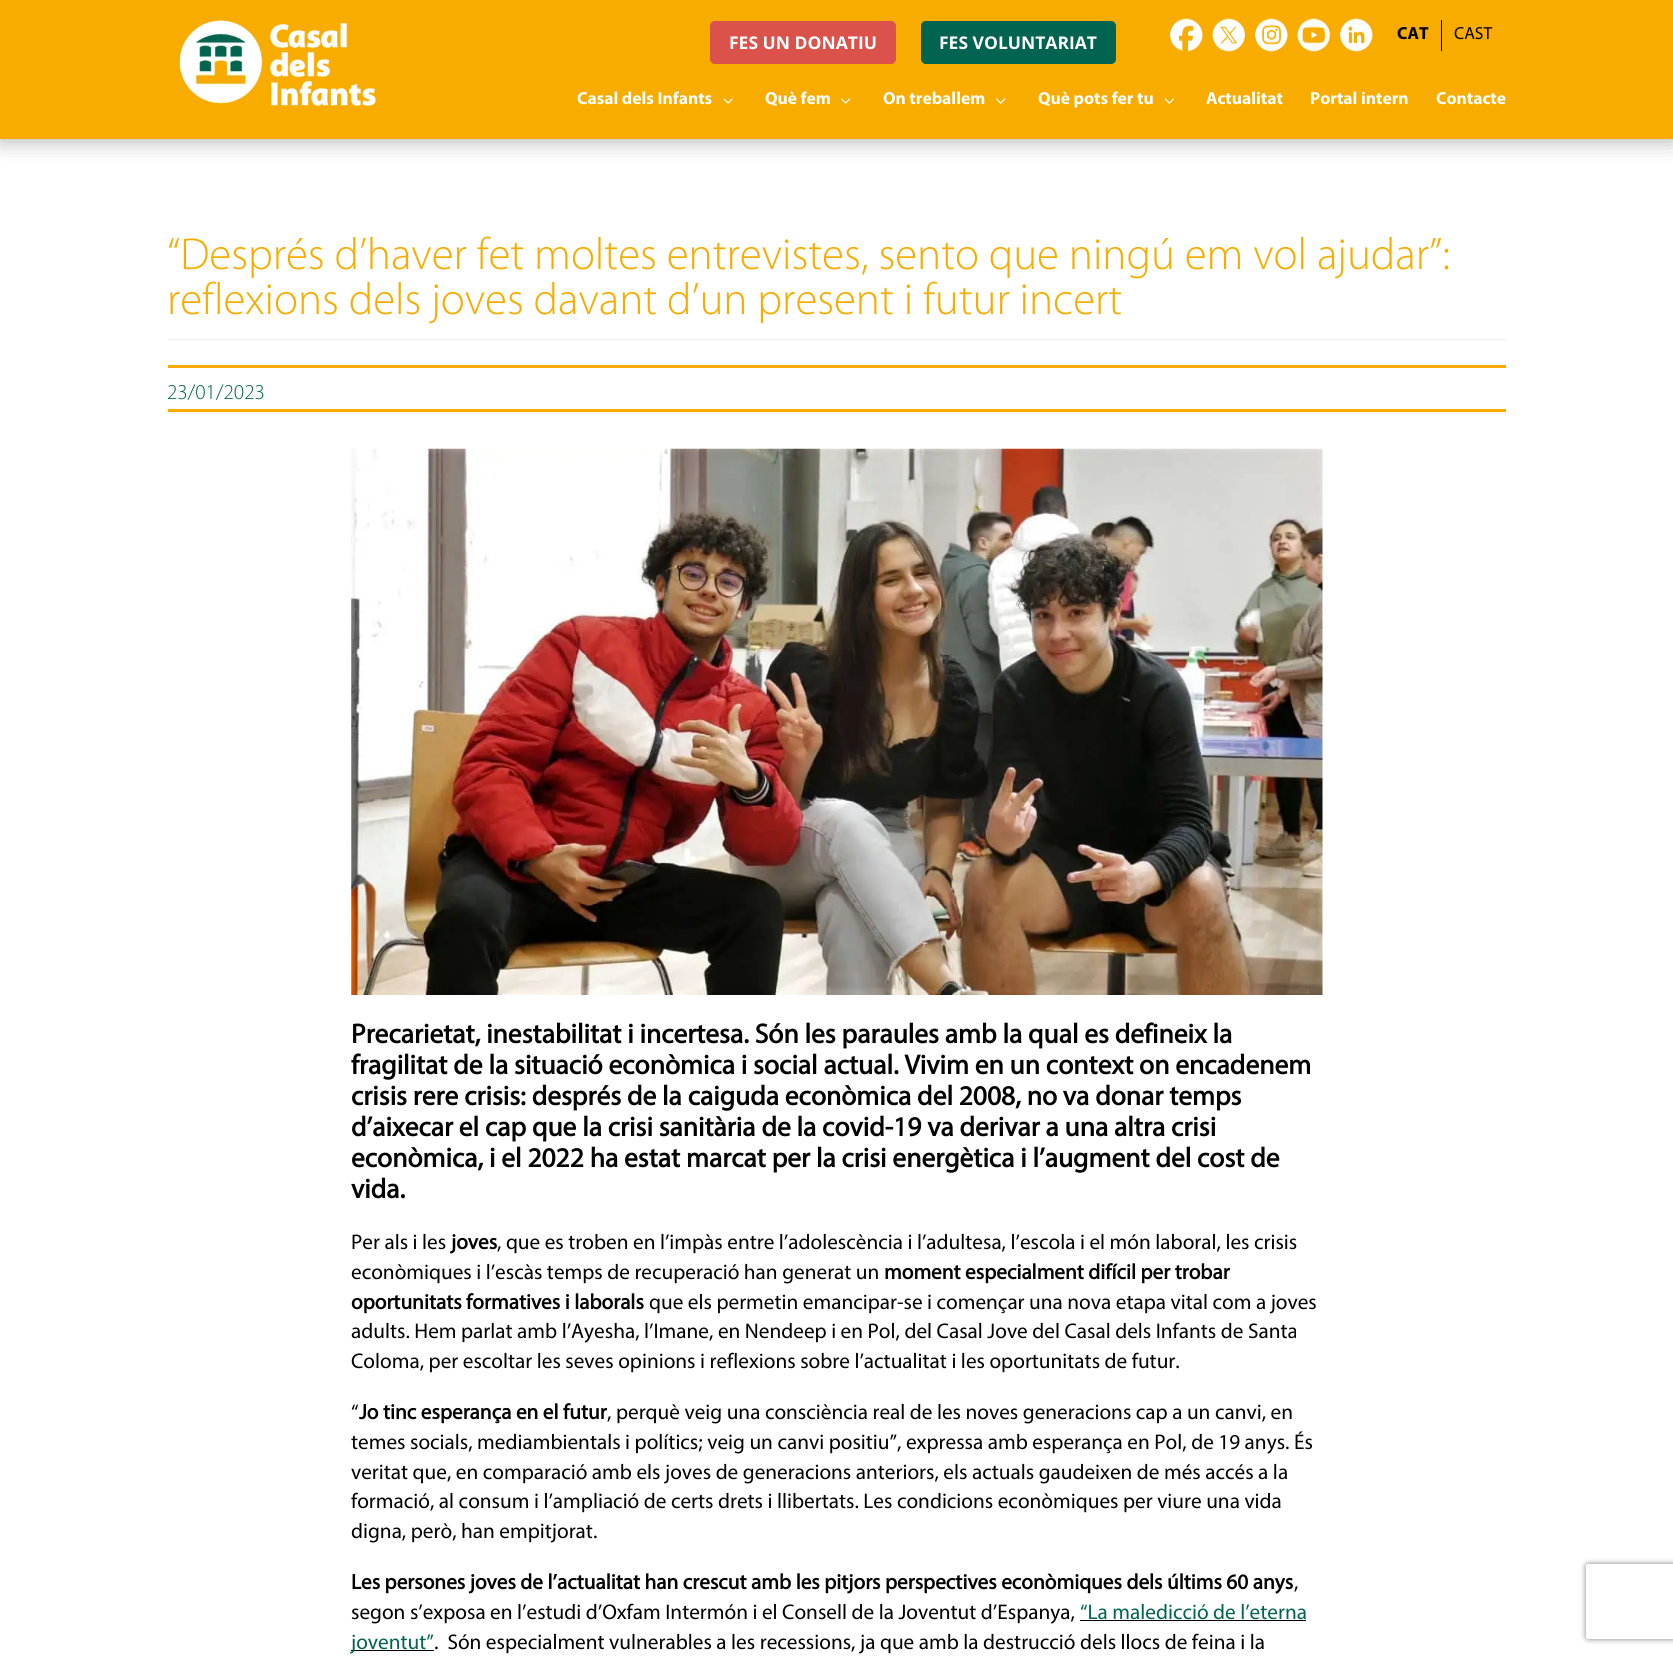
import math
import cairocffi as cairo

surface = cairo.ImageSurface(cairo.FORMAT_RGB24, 1673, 1656)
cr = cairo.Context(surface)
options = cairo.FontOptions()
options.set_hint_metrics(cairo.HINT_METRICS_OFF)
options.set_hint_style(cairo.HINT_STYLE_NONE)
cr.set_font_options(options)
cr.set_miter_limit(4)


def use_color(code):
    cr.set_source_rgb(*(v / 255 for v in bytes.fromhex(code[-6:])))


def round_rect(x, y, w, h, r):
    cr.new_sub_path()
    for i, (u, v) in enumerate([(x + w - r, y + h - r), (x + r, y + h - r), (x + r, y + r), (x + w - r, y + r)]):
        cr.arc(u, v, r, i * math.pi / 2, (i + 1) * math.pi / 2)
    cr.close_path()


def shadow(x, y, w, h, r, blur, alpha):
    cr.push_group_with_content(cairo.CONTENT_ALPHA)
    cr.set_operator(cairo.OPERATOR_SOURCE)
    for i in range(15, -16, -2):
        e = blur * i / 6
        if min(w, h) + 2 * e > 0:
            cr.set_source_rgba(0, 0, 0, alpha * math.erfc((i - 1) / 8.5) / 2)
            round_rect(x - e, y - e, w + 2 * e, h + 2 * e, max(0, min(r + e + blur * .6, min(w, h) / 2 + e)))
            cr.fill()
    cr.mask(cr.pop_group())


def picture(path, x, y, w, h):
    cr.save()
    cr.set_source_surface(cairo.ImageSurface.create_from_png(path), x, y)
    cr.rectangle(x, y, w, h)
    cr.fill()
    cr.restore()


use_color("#ffffff")
cr.paint()
use_color("#000000")
shadow(0, 3, 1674, 138, 0, 11, 0.3)
use_color("#f8ac00")
cr.rectangle(0, 0, 1673, 139)
cr.fill()
picture("img1.png", 179, 20, 197, 86)
picture("img2.png", 1170, 18, 33, 34)
picture("img3.png", 1212, 18, 34, 34)
picture("img4.png", 1254, 18, 34, 34)
picture("img5.png", 1297, 18, 34, 34)
picture("img6.png", 1339, 18, 34, 34)
use_color("#000000")
cr.rectangle(1441, 20, 1, 31)
cr.fill()
cr.select_font_face("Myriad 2", cairo.FONT_SLANT_NORMAL, cairo.FONT_WEIGHT_BOLD)
cr.set_font_size(17.5)
cr.move_to(1397, 39)
cr.show_text("CAT")
cr.select_font_face("Myriad")
cr.move_to(1454, 39)
cr.show_text("CAST")
use_color("#db524b")
round_rect(710.5, 21.5, 185, 42, 4.5)
cr.fill_preserve()
cr.set_line_width(1)
cr.stroke()
cr.select_font_face("Open Sans", cairo.FONT_SLANT_NORMAL, cairo.FONT_WEIGHT_BOLD)
use_color("#ffffff")
cr.move_to(729, 49)
cr.show_text("FES UN DONATIU")
use_color("#006450")
round_rect(921.5, 21.5, 194, 42, 4.5)
cr.fill_preserve()
cr.stroke()
use_color("#ffffff")
cr.move_to(939, 49)
cr.show_text("FES VOLUNTARIAT")
cr.select_font_face("Myriad 2", cairo.FONT_SLANT_NORMAL, cairo.FONT_WEIGHT_BOLD)
cr.move_to(577, 104)
cr.show_text("Casal dels Infants")
picture("img7.png", 723, 98, 10, 6)
cr.move_to(765, 104)
cr.show_text("Què fem")
picture("img8.png", 841, 98, 10, 6)
cr.move_to(883, 104)
cr.show_text("On treballem")
picture("img8.png", 996, 98, 10, 6)
cr.move_to(1038, 104)
cr.show_text("Què pots fer tu")
picture("img9.png", 1164, 98, 10, 6)
cr.move_to(1206, 104)
cr.show_text("Actualitat")
cr.move_to(1310, 104)
cr.show_text("Portal intern")
cr.move_to(1436, 104)
cr.show_text("Contacte")
use_color("#eeeeee")
cr.rectangle(168, 339, 1338, 1)
cr.fill()
cr.select_font_face("Myriad Light")
cr.set_font_size(45)
use_color("#f8ac00")
cr.move_to(167, 269)
cr.show_text("“Després d’haver fet moltes entrevistes, sento que ningú em vol ajudar”:")
cr.move_to(167, 314)
cr.show_text("reflexions dels joves davant d’un present i futur incert")
cr.rectangle(168, 365, 1338, 3)
cr.fill()
cr.rectangle(168, 409, 1338, 3)
cr.fill()
cr.set_font_size(21.25)
use_color("#006450")
cr.move_to(167, 399)
cr.show_text("23/01/2023")
picture("img10.png", 351, 448, 972, 547)
cr.select_font_face("Myriad", cairo.FONT_SLANT_NORMAL, cairo.FONT_WEIGHT_BOLD)
cr.set_font_size(27.5)
use_color("#000000")
cr.move_to(351, 1043)
cr.show_text("Precarietat, inestabilitat i incertesa. Són les paraules amb la qual es defineix la")
cr.move_to(351, 1074)
cr.show_text("fragilitat de la situació econòmica i social actual. Vivim en un context on encadenem")
cr.move_to(351, 1105)
cr.show_text("crisis rere crisis: després de la caiguda econòmica del 2008, no va donar temps")
cr.move_to(351, 1136)
cr.show_text("d’aixecar el cap que la crisi sanitària de la covid-19 va derivar a una altra crisi")
cr.move_to(351, 1167)
cr.show_text("econòmica, i el 2022 ha estat marcat per la crisi energètica i l’augment del cost de")
cr.move_to(351, 1198)
cr.show_text("vida.")
cr.select_font_face("Myriad")
cr.set_font_size(21.25)
cr.move_to(351, 1249)
cr.show_text("Per als i les")
cr.select_font_face("Myriad", cairo.FONT_SLANT_NORMAL, cairo.FONT_WEIGHT_BOLD)
cr.move_to(451, 1249)
cr.show_text("joves")
cr.select_font_face("Myriad")
cr.move_to(497, 1249)
cr.show_text(", que es troben en l’impàs entre l’adolescència i l’adultesa, l’escola i el món laboral, les crisis")
cr.move_to(351, 1279)
cr.show_text("econòmiques i l’escàs temps de recuperació han generat un")
cr.select_font_face("Myriad", cairo.FONT_SLANT_NORMAL, cairo.FONT_WEIGHT_BOLD)
cr.move_to(884, 1279)
cr.show_text("moment especialment difícil per trobar")
cr.move_to(351, 1309)
cr.show_text("oportunitats formatives i laborals")
cr.select_font_face("Myriad")
cr.move_to(649, 1309)
cr.show_text("que els permetin emancipar-se i començar una nova etapa vital com a joves")
cr.move_to(351, 1338)
cr.show_text("adults. Hem parlat amb l’Ayesha, l’Imane, en Nendeep i en Pol, del Casal Jove del Casal dels Infants de Santa")
cr.move_to(351, 1368)
cr.show_text("Coloma, per escoltar les seves opinions i reflexions sobre l’actualitat i les oportunitats de futur.")
cr.move_to(351, 1419)
cr.show_text("“")
cr.select_font_face("Myriad", cairo.FONT_SLANT_NORMAL, cairo.FONT_WEIGHT_BOLD)
cr.move_to(359, 1419)
cr.show_text("Jo tinc esperança en el futur")
cr.select_font_face("Myriad")
cr.move_to(607, 1419)
cr.show_text(", perquè veig una consciència real de les noves generacions cap a un canvi, en")
cr.move_to(351, 1449)
cr.show_text("temes socials, mediambientals i polítics; veig un canvi positiu”, expressa amb esperança en Pol, de 19 anys. És")
cr.move_to(351, 1479)
cr.show_text("veritat que, en comparació amb els joves de generacions anteriors, els actuals gaudeixen de més accés a la")
cr.move_to(351, 1508)
cr.show_text("formació, al consum i l’ampliació de certs drets i llibertats. Les condicions econòmiques per viure una vida")
cr.move_to(351, 1538)
cr.show_text("digna, però, han empitjorat.")
cr.select_font_face("Myriad", cairo.FONT_SLANT_NORMAL, cairo.FONT_WEIGHT_BOLD)
cr.move_to(351, 1589)
cr.show_text("Les persones joves de l’actualitat han crescut amb les pitjors perspectives econòmiques dels últims 60 anys")
cr.select_font_face("Myriad")
cr.move_to(1294, 1589)
cr.show_text(",")
cr.move_to(351, 1619)
cr.show_text("segon s’exposa en l’estudi d’Oxfam Intermón i el Consell de la Joventut d’Espanya,")
use_color("#006450")
cr.move_to(1080, 1619)
cr.show_text("“La maledicció de l’eterna")
use_color("#000000")
cr.rectangle(1080, 1620, 226, 1)
cr.fill()
cr.rectangle(351, 1650, 83, 1)
cr.fill()
use_color("#006450")
cr.move_to(351, 1649)
cr.show_text("joventut”")
use_color("#000000")
cr.move_to(434, 1649)
cr.show_text(".  Són especialment vulnerables a les recessions, ja que amb la destrucció dels llocs de feina i la")
cr.save()
cr.set_fill_rule(cairo.FILL_RULE_EVEN_ODD)
cr.new_path()
cr.move_to(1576, 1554)
cr.line_to(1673, 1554)
cr.line_to(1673, 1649)
cr.line_to(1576, 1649)
cr.close_path()
cr.move_to(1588.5, 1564)
cr.line_to(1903.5, 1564)
cr.curve_to(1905, 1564, 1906, 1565, 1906, 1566.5)
cr.line_to(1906, 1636.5)
cr.curve_to(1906, 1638, 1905, 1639, 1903.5, 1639)
cr.line_to(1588.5, 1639)
cr.curve_to(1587, 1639, 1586, 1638, 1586, 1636.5)
cr.line_to(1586, 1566.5)
cr.curve_to(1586, 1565, 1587, 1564, 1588.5, 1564)
cr.close_path()
cr.clip()
use_color("#808080")
shadow(1586, 1564, 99, 75, 2.5, 3, 1)
cr.restore()
surface.write_to_png("result.png")
